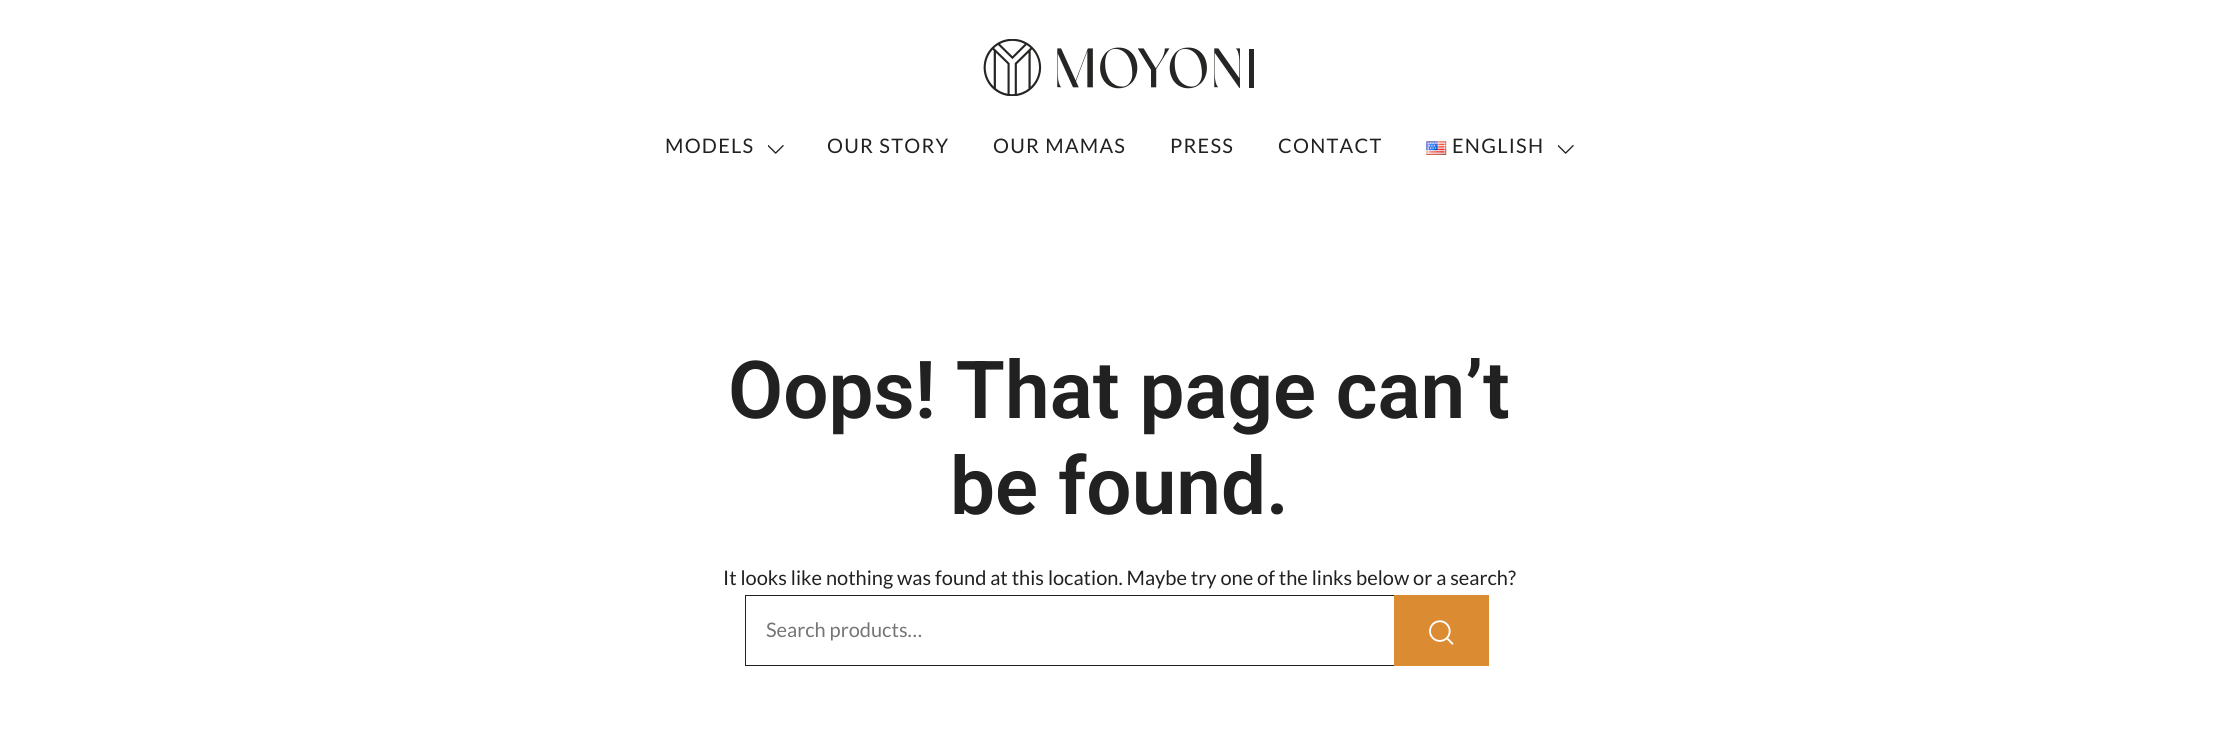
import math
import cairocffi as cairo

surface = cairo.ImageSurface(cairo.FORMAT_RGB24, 2238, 729)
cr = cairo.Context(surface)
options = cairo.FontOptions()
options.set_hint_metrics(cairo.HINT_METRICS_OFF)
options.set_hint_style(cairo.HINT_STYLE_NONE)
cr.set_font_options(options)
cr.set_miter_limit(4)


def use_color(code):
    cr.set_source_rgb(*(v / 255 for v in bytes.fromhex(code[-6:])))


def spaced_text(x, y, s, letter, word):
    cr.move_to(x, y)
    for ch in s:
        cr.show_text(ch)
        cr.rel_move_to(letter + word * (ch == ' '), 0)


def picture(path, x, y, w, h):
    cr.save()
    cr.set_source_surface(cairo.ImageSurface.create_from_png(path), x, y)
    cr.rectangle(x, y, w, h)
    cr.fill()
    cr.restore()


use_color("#ffffff")
cr.paint()
picture("img1.png", 983, 39, 271, 57)
cr.select_font_face("Lato")
cr.set_font_size(20)
use_color("#212121")
spaced_text(665, 153, "MODELS", 1.25, 0)
picture("img2.png", 768, 145, 16, 9)
spaced_text(827, 153, "OUR STORY", 1.25, 0)
spaced_text(993, 153, "OUR MAMAS", 1.25, 0)
spaced_text(1170, 153, "PRESS", 1.25, 0)
spaced_text(1278, 153, "CONTACT", 1.25, 0)
picture("img3.png", 1426, 141, 21, 14)
spaced_text(1452, 153, "ENGLISH", 1.25, 0)
picture("img2.png", 1558, 145, 16, 9)
cr.select_font_face("Roboto SemiBold")
cr.set_font_size(80)
cr.move_to(728, 418)
cr.show_text("Oops! That page can’t")
cr.move_to(950, 514)
cr.show_text("be found.")
cr.select_font_face("Lato")
cr.set_font_size(20)
cr.move_to(723, 585)
cr.show_text("It looks like nothing was found at this location. Maybe try one of the links below or a search?")
cr.rectangle(745.5, 595.5, 654, 70)
cr.set_line_width(1)
cr.stroke()
use_color("#757575")
cr.move_to(766, 637)
cr.show_text("Search products…")
use_color("#db8b32")
cr.rectangle(1394, 595, 95, 71)
cr.fill()
picture("img4.png", 1429, 620, 25, 25)
surface.write_to_png("result.png")
